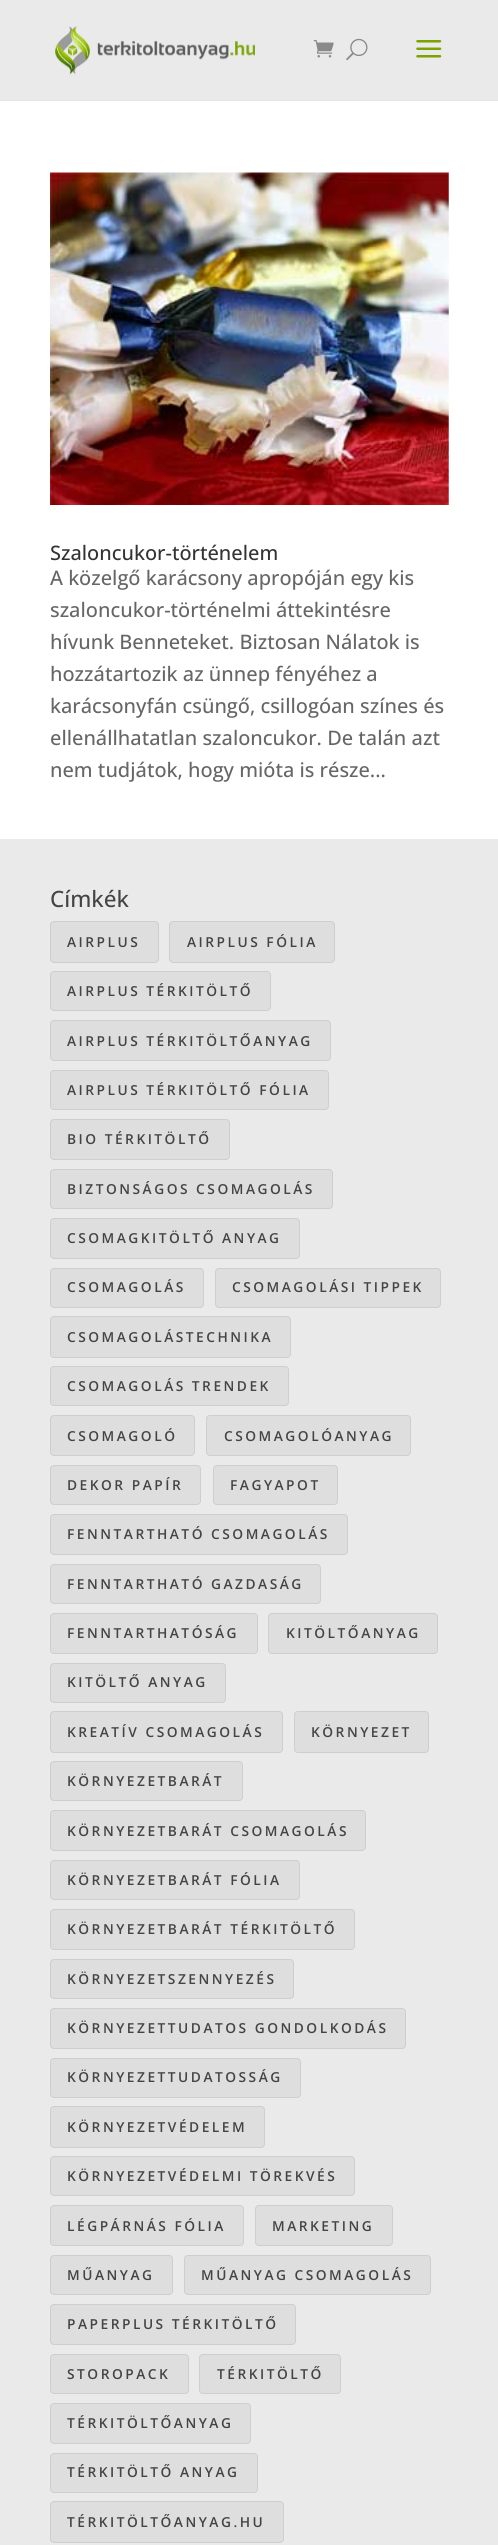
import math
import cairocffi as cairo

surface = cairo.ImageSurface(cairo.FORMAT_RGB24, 498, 2545)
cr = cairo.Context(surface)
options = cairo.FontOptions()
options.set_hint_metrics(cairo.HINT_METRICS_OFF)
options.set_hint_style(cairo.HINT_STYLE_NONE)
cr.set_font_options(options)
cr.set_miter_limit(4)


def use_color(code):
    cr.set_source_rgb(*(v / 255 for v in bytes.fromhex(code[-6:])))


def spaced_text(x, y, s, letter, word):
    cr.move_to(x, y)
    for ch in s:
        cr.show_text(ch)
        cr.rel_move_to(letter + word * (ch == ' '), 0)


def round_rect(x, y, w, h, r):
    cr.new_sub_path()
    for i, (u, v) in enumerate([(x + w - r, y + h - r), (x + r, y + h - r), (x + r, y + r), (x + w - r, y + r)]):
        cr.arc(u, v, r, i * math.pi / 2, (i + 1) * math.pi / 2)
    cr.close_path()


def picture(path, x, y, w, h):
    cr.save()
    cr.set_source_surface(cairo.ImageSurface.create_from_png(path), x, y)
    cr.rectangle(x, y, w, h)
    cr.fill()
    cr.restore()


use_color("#ffffff")
cr.paint()
use_color("#e6e6e6")
cr.new_path()
cr.move_to(0, 100)
cr.line_to(0, 101)
cr.line_to(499, 101)
cr.line_to(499, 1)
cr.line_to(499, 100)
cr.close_path()
cr.fill()
use_color("#eaeaea")
cr.rectangle(0, 0, 498, 100)
cr.fill()
picture("img1.png", 55, 26, 200, 49)
picture("img2.png", 313, 40, 21, 18)
picture("img3.png", 346, 38, 22, 23)
picture("img4.png", 416, 40, 26, 18)
picture("img5.png", 50, 172, 399, 333)
cr.select_font_face("Open Sans Medium")
cr.set_font_size(20)
use_color("#333333")
cr.move_to(50, 560)
cr.show_text("Szaloncukor-történelem")
use_color("#666666")
cr.move_to(50, 585)
cr.show_text("A közelgő karácsony apropóján egy kis")
cr.move_to(50, 617)
cr.show_text("szaloncukor-történelmi áttekintésre")
cr.move_to(50, 649)
cr.show_text("hívunk Benneteket. Biztosan Nálatok is")
cr.move_to(50, 681)
cr.show_text("hozzátartozik az ünnep fényéhez a")
cr.move_to(50, 713)
cr.show_text("karácsonyfán csüngő, csillogóan színes és")
cr.move_to(50, 745)
cr.show_text("ellenállhatatlan szaloncukor. De talán azt")
cr.move_to(50, 777)
cr.show_text("nem tudjátok, hogy mióta is része...")
use_color("#eaeaea")
cr.rectangle(0, 839, 498, 1706)
cr.fill()
cr.set_font_size(22.5)
use_color("#444444")
cr.move_to(50, 907)
cr.show_text("Címkék")
use_color("#dedede")
round_rect(50.5, 921.5, 108, 41, 3.5)
cr.fill_preserve()
use_color("#cecece")
cr.set_line_width(1)
cr.stroke()
cr.select_font_face("Open Sans SemiBold")
cr.set_font_size(13.75)
use_color("#444444")
spaced_text(67, 947, "AIRPLUS", 2.5, 0)
use_color("#dedede")
round_rect(169.5, 921.5, 165, 41, 3.5)
cr.fill_preserve()
use_color("#cecece")
cr.stroke()
use_color("#444444")
spaced_text(187, 947, "AIRPLUS FÓLIA", 2.5, 0)
use_color("#dedede")
round_rect(50.5, 971.5, 220, 39, 3.5)
cr.fill_preserve()
use_color("#cecece")
cr.stroke()
use_color("#444444")
spaced_text(67, 996, "AIRPLUS TÉRKITÖLTŐ", 2.5, 0)
use_color("#dedede")
round_rect(50.5, 1020.5, 280, 40, 3.5)
cr.fill_preserve()
use_color("#cecece")
cr.stroke()
use_color("#444444")
spaced_text(67, 1046, "AIRPLUS TÉRKITÖLTŐANYAG", 2.5, 0)
use_color("#dedede")
round_rect(50.5, 1070.5, 278, 39, 3.5)
cr.fill_preserve()
use_color("#cecece")
cr.stroke()
use_color("#444444")
spaced_text(67, 1095, "AIRPLUS TÉRKITÖLTŐ FÓLIA", 2.5, 0)
use_color("#dedede")
round_rect(50.5, 1119.5, 179, 40, 3.5)
cr.fill_preserve()
use_color("#cecece")
cr.stroke()
use_color("#444444")
spaced_text(67, 1144, "BIO TÉRKITÖLTŐ", 2.5, 0)
use_color("#dedede")
round_rect(50.5, 1169.5, 282, 39, 3.5)
cr.fill_preserve()
use_color("#cecece")
cr.stroke()
use_color("#444444")
spaced_text(67, 1194, "BIZTONSÁGOS CSOMAGOLÁS", 2.5, 0)
use_color("#dedede")
round_rect(50.5, 1218.5, 249, 40, 3.5)
cr.fill_preserve()
use_color("#cecece")
cr.stroke()
use_color("#444444")
spaced_text(67, 1243, "CSOMAGKITÖLTŐ ANYAG", 2.5, 0)
use_color("#dedede")
round_rect(50.5, 1268.5, 153, 39, 3.5)
cr.fill_preserve()
use_color("#cecece")
cr.stroke()
use_color("#444444")
spaced_text(67, 1292, "CSOMAGOLÁS", 2.5, 0)
use_color("#dedede")
round_rect(215.5, 1268.5, 225, 39, 3.5)
cr.fill_preserve()
use_color("#cecece")
cr.stroke()
use_color("#444444")
spaced_text(232, 1292, "CSOMAGOLÁSI TIPPEK", 2.5, 0)
use_color("#dedede")
round_rect(50.5, 1316.5, 240, 41, 3.5)
cr.fill_preserve()
use_color("#cecece")
cr.stroke()
use_color("#444444")
spaced_text(67, 1342, "CSOMAGOLÁSTECHNIKA", 2.5, 0)
use_color("#dedede")
round_rect(50.5, 1366.5, 238, 39, 3.5)
cr.fill_preserve()
use_color("#cecece")
cr.stroke()
use_color("#444444")
spaced_text(67, 1391, "CSOMAGOLÁS TRENDEK", 2.5, 0)
use_color("#dedede")
round_rect(50.5, 1415.5, 144, 40, 3.5)
cr.fill_preserve()
use_color("#cecece")
cr.stroke()
use_color("#444444")
spaced_text(67, 1441, "CSOMAGOLÓ", 2.5, 0)
use_color("#dedede")
round_rect(206.5, 1415.5, 204, 40, 3.5)
cr.fill_preserve()
use_color("#cecece")
cr.stroke()
use_color("#444444")
spaced_text(224, 1441, "CSOMAGOLÓANYAG", 2.5, 0)
use_color("#dedede")
round_rect(50.5, 1465.5, 150, 39, 3.5)
cr.fill_preserve()
use_color("#cecece")
cr.stroke()
use_color("#444444")
spaced_text(67, 1490, "DEKOR PAPÍR", 2.5, 0)
use_color("#dedede")
round_rect(213.5, 1465.5, 124, 39, 3.5)
cr.fill_preserve()
use_color("#cecece")
cr.stroke()
use_color("#444444")
spaced_text(230, 1490, "FAGYAPOT", 2.5, 0)
use_color("#dedede")
round_rect(50.5, 1514.5, 297, 40, 3.5)
cr.fill_preserve()
use_color("#cecece")
cr.stroke()
use_color("#444444")
spaced_text(67, 1539, "FENNTARTHATÓ CSOMAGOLÁS", 2.5, 0)
use_color("#dedede")
round_rect(50.5, 1564.5, 270, 39, 3.5)
cr.fill_preserve()
use_color("#cecece")
cr.stroke()
use_color("#444444")
spaced_text(67, 1589, "FENNTARTHATÓ GAZDASÁG", 2.5, 0)
use_color("#dedede")
round_rect(50.5, 1613.5, 207, 40, 3.5)
cr.fill_preserve()
use_color("#cecece")
cr.stroke()
use_color("#444444")
spaced_text(67, 1638, "FENNTARTHATÓSÁG", 2.5, 0)
use_color("#dedede")
round_rect(268.5, 1613.5, 169, 40, 3.5)
cr.fill_preserve()
use_color("#cecece")
cr.stroke()
use_color("#444444")
spaced_text(286, 1638, "KITÖLTŐANYAG", 2.5, 0)
use_color("#dedede")
round_rect(50.5, 1663.5, 175, 39, 3.5)
cr.fill_preserve()
use_color("#cecece")
cr.stroke()
use_color("#444444")
spaced_text(67, 1687, "KITÖLTŐ ANYAG", 2.5, 0)
use_color("#dedede")
round_rect(50.5, 1711.5, 232, 41, 3.5)
cr.fill_preserve()
use_color("#cecece")
cr.stroke()
use_color("#444444")
spaced_text(67, 1737, "KREATÍV CSOMAGOLÁS", 2.5, 0)
use_color("#dedede")
round_rect(294.5, 1711.5, 134, 41, 3.5)
cr.fill_preserve()
use_color("#cecece")
cr.stroke()
use_color("#444444")
spaced_text(311, 1737, "KÖRNYEZET", 2.5, 0)
use_color("#dedede")
round_rect(50.5, 1761.5, 192, 39, 3.5)
cr.fill_preserve()
use_color("#cecece")
cr.stroke()
use_color("#444444")
spaced_text(67, 1786, "KÖRNYEZETBARÁT", 2.5, 0)
use_color("#dedede")
round_rect(50.5, 1810.5, 315, 40, 3.5)
cr.fill_preserve()
use_color("#cecece")
cr.stroke()
use_color("#444444")
spaced_text(67, 1836, "KÖRNYEZETBARÁT CSOMAGOLÁS", 2.5, 0)
use_color("#dedede")
round_rect(50.5, 1860.5, 249, 39, 3.5)
cr.fill_preserve()
use_color("#cecece")
cr.stroke()
use_color("#444444")
spaced_text(67, 1885, "KÖRNYEZETBARÁT FÓLIA", 2.5, 0)
use_color("#dedede")
round_rect(50.5, 1909.5, 304, 40, 3.5)
cr.fill_preserve()
use_color("#cecece")
cr.stroke()
use_color("#444444")
spaced_text(67, 1934, "KÖRNYEZETBARÁT TÉRKITÖLTŐ", 2.5, 0)
use_color("#dedede")
round_rect(50.5, 1959.5, 243, 39, 3.5)
cr.fill_preserve()
use_color("#cecece")
cr.stroke()
use_color("#444444")
spaced_text(67, 1984, "KÖRNYEZETSZENNYEZÉS", 2.5, 0)
use_color("#dedede")
round_rect(50.5, 2008.5, 355, 40, 3.5)
cr.fill_preserve()
use_color("#cecece")
cr.stroke()
use_color("#444444")
spaced_text(67, 2033, "KÖRNYEZETTUDATOS GONDOLKODÁS", 2.5, 0)
use_color("#dedede")
round_rect(50.5, 2058.5, 250, 39, 3.5)
cr.fill_preserve()
use_color("#cecece")
cr.stroke()
use_color("#444444")
spaced_text(67, 2082, "KÖRNYEZETTUDATOSSÁG", 2.5, 0)
use_color("#dedede")
round_rect(50.5, 2106.5, 214, 41, 3.5)
cr.fill_preserve()
use_color("#cecece")
cr.stroke()
use_color("#444444")
spaced_text(67, 2132, "KÖRNYEZETVÉDELEM", 2.5, 0)
use_color("#dedede")
round_rect(50.5, 2156.5, 304, 39, 3.5)
cr.fill_preserve()
use_color("#cecece")
cr.stroke()
use_color("#444444")
spaced_text(67, 2181, "KÖRNYEZETVÉDELMI TÖREKVÉS", 2.5, 0)
use_color("#dedede")
round_rect(50.5, 2205.5, 193, 40, 3.5)
cr.fill_preserve()
use_color("#cecece")
cr.stroke()
use_color("#444444")
spaced_text(67, 2231, "LÉGPÁRNÁS FÓLIA", 2.5, 0)
use_color("#dedede")
round_rect(255.5, 2205.5, 137, 40, 3.5)
cr.fill_preserve()
use_color("#cecece")
cr.stroke()
use_color("#444444")
spaced_text(272, 2231, "MARKETING", 2.5, 0)
use_color("#dedede")
round_rect(50.5, 2255.5, 122, 39, 3.5)
cr.fill_preserve()
use_color("#cecece")
cr.stroke()
use_color("#444444")
spaced_text(67, 2280, "MŰANYAG", 2.5, 0)
use_color("#dedede")
round_rect(184.5, 2255.5, 246, 39, 3.5)
cr.fill_preserve()
use_color("#cecece")
cr.stroke()
use_color("#444444")
spaced_text(201, 2280, "MŰANYAG CSOMAGOLÁS", 2.5, 0)
use_color("#dedede")
round_rect(50.5, 2304.5, 245, 40, 3.5)
cr.fill_preserve()
use_color("#cecece")
cr.stroke()
use_color("#444444")
spaced_text(67, 2329, "PAPERPLUS TÉRKITÖLTŐ", 2.5, 0)
use_color("#dedede")
round_rect(50.5, 2354.5, 138, 39, 3.5)
cr.fill_preserve()
use_color("#cecece")
cr.stroke()
use_color("#444444")
spaced_text(67, 2379, "STOROPACK", 2.5, 0)
use_color("#dedede")
round_rect(199.5, 2354.5, 141, 39, 3.5)
cr.fill_preserve()
use_color("#cecece")
cr.stroke()
use_color("#444444")
spaced_text(217, 2379, "TÉRKITÖLTŐ", 2.5, 0)
use_color("#dedede")
round_rect(50.5, 2403.5, 200, 40, 3.5)
cr.fill_preserve()
use_color("#cecece")
cr.stroke()
use_color("#444444")
spaced_text(67, 2428, "TÉRKITÖLTŐANYAG", 2.5, 0)
use_color("#dedede")
round_rect(50.5, 2453.5, 207, 39, 3.5)
cr.fill_preserve()
use_color("#cecece")
cr.stroke()
use_color("#444444")
spaced_text(67, 2477, "TÉRKITÖLTŐ ANYAG", 2.5, 0)
use_color("#dedede")
round_rect(50.5, 2501.5, 233, 41, 3.5)
cr.fill_preserve()
use_color("#cecece")
cr.stroke()
use_color("#444444")
spaced_text(67, 2527, "TÉRKITÖLTŐANYAG.HU", 2.5, 0)
surface.write_to_png("result.png")
